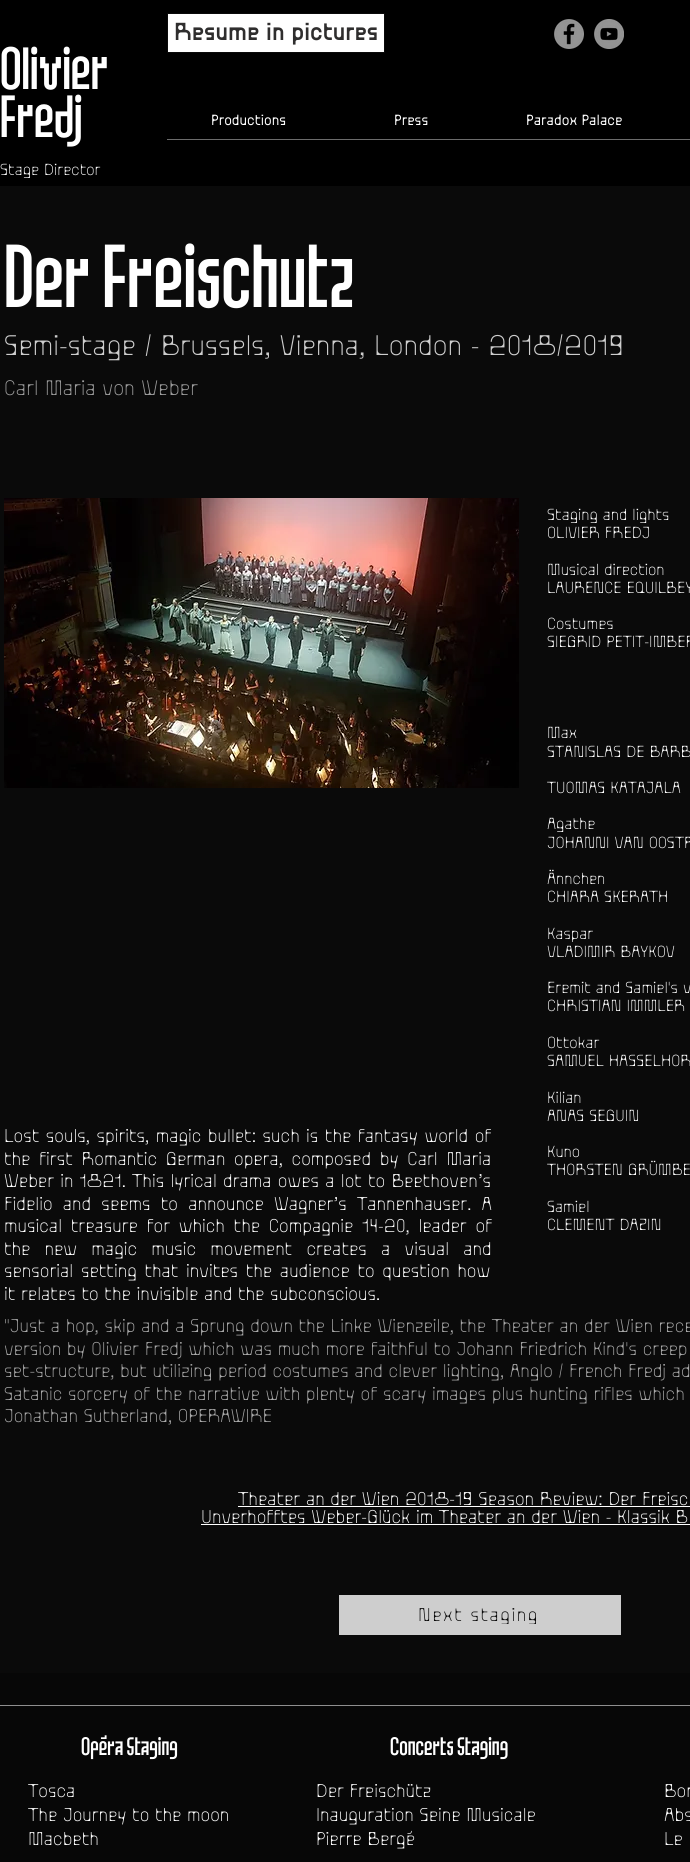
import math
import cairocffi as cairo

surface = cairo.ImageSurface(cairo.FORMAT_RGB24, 690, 1862)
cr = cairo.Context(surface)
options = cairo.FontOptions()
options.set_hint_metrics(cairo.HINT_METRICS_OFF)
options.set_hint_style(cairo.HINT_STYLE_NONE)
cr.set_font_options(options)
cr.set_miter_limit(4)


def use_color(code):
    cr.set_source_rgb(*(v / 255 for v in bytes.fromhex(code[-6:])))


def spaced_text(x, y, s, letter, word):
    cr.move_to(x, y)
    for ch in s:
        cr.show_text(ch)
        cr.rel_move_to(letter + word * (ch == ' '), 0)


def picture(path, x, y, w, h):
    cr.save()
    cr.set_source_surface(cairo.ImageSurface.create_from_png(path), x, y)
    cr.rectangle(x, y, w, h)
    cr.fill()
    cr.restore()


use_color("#0a0a0a")
cr.paint()
use_color("#000000")
cr.rectangle(0, 0, 690, 186)
cr.fill()
cr.select_font_face("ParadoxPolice")
cr.set_font_size(40)
use_color("#ffffff")
cr.move_to(0, 89)
cr.show_text("Olivier")
cr.move_to(0, 137)
cr.show_text("Fredj")
cr.select_font_face("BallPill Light")
cr.set_font_size(13)
cr.move_to(0, 175)
cr.show_text("Stage Director")
cr.rectangle(167.5, 13.5, 217, 39)
cr.fill_preserve()
use_color("#0a0a0a")
cr.set_line_width(1)
cr.stroke()
cr.select_font_face("BallPill Medium")
cr.set_font_size(20)
use_color("#2f2e2e")
cr.move_to(174, 40)
cr.show_text("Resume in pictures")
picture("img1.png", 554, 19, 30, 30)
picture("img2.png", 594, 19, 30, 30)
cr.select_font_face("BallPill")
cr.set_font_size(12)
use_color("#ffffff")
cr.move_to(211, 125)
cr.show_text("Productions")
cr.move_to(394, 125)
cr.show_text("Press")
cr.move_to(526, 125)
cr.show_text("Paradox Palace")
use_color("#6c6c6c")
cr.rectangle(167, 139, 523, 1)
cr.fill()
cr.select_font_face("ParadoxPolice")
cr.set_font_size(60)
use_color("#ffffff")
cr.move_to(4, 307)
cr.show_text("Der Freischutz")
cr.select_font_face("BallPill Light")
cr.set_font_size(23)
use_color("#cecece")
cr.move_to(4, 355)
cr.show_text("Semi-stage / Brussels, Vienna, London - 2018/2019")
cr.set_font_size(17)
use_color("#9d9d9d")
cr.move_to(4, 395)
cr.show_text("Carl Maria von Weber")
picture("img3.png", 4, 498, 515, 290)
cr.set_font_size(13)
use_color("#ffffff")
cr.move_to(547, 520)
cr.show_text("Staging and lights")
cr.move_to(547, 538)
cr.show_text("OLIVIER FREDJ")
cr.move_to(547, 575)
cr.show_text("Musical direction")
cr.move_to(547, 593)
cr.show_text("LAURENCE EQUILBEY")
cr.move_to(547, 629)
cr.show_text("Costumes")
cr.move_to(547, 647)
cr.show_text("SIEGRID PETIT-IMBER")
cr.move_to(547, 738)
cr.show_text("Max")
cr.move_to(547, 757)
cr.show_text("STANISLAS DE BARB")
cr.move_to(547, 793)
cr.show_text("TUOMAS KATAJALA")
cr.move_to(547, 829)
cr.show_text("Agathe")
cr.move_to(547, 848)
cr.show_text("JOHANNI VAN OOSTR")
cr.move_to(547, 884)
cr.show_text("Ännchen")
cr.move_to(547, 902)
cr.show_text("CHIARA SKERATH")
cr.move_to(547, 939)
cr.show_text("Kaspar")
cr.move_to(547, 957)
cr.show_text("VLADIMIR BAYKOV")
cr.move_to(547, 993)
cr.show_text("Eremit and Samiel's v")
cr.move_to(547, 1011)
cr.show_text("CHRISTIAN IMMLER")
cr.move_to(547, 1048)
cr.show_text("Ottokar")
cr.move_to(547, 1066)
cr.show_text("SAMUEL HASSELHOR")
cr.move_to(547, 1103)
cr.show_text("Kilian")
cr.move_to(547, 1121)
cr.show_text("ANAS SEGUIN")
cr.move_to(547, 1157)
cr.show_text("Kuno")
cr.move_to(547, 1175)
cr.show_text("THORSTEN GRÜMBE")
cr.move_to(547, 1212)
cr.show_text("Samiel")
cr.move_to(547, 1230)
cr.show_text("CLEMENT DAZIN")
cr.set_font_size(15)
spaced_text(4, 1142, "Lost souls, spirits, magic bullet: such is the fantasy world of", 0, 0.75)
spaced_text(4, 1165, "the first Romantic German opera, composed by Carl Maria", 0, 3)
spaced_text(4, 1187, "Weber in 1821. This lyrical drama owes a lot to Beethoven’s", 0, 0.5)
spaced_text(4, 1210, "Fidelio and seems to announce Wagner’s Tannenhauser. A", 0, 4.5)
spaced_text(4, 1232, "musical treasure for which the Compagnie 14-20, leader of", 0, 3)
spaced_text(4, 1255, "the new magic music movement creates a visual and", 0, 8.5)
spaced_text(4, 1277, "sensorial setting that invites the audience to question how", 0, 2)
cr.move_to(4, 1300)
cr.show_text("it relates to the invisible and the subconscious.")
use_color("#a9a9a9")
cr.move_to(4, 1332)
cr.show_text("\"Just a hop, skip and a Sprung down the Linke Wienzeile, the Theater an der Wien rece")
cr.move_to(4, 1355)
cr.show_text("version by Olivier Fredj which was much more faithful to Johann Friedrich Kind's creep")
cr.move_to(4, 1377)
cr.show_text("set-structure, but utilizing period costumes and clever lighting, Anglo / French Fredj ad")
cr.move_to(4, 1400)
cr.show_text("Satanic sorcery of the narrative with plenty of scary images plus hunting rifles which")
cr.move_to(4, 1422)
cr.show_text("Jonathan Sutherland, OPERAWIRE")
use_color("#ffffff")
cr.move_to(238, 1505)
cr.show_text("Theater an der Wien 2018-19 Season Review: Der Freisc")
cr.rectangle(238, 1506, 452, 1)
cr.fill()
cr.move_to(201, 1523)
cr.show_text("Unverhofftes Weber-Glück im Theater an der Wien - Klassik B")
cr.rectangle(201, 1524, 489, 1)
cr.fill()
use_color("#cecece")
cr.rectangle(339, 1595, 282, 40)
cr.fill()
cr.save()
cr.rectangle(418, 1606, 120, 18)
cr.clip()
use_color("#0a0a0a")
spaced_text(418, 1621, "Next staging", 1.5, 0)
cr.restore()
use_color("#070707")
cr.rectangle(0, 1673, 690, 189)
cr.fill()
use_color("#8e8e8e")
cr.rectangle(0, 1705, 690, 1)
cr.fill()
cr.select_font_face("ParadoxPolice")
cr.set_font_size(17)
use_color("#ffffff")
cr.move_to(81, 1755)
cr.show_text("Opéra Staging")
cr.select_font_face("BallPill Light")
cr.set_font_size(15)
cr.move_to(28, 1797)
cr.show_text("Tosca")
cr.move_to(28, 1821)
cr.show_text("The Journey to the moon")
cr.move_to(28, 1845)
cr.show_text("Macbeth")
cr.select_font_face("ParadoxPolice")
cr.set_font_size(17)
cr.move_to(390, 1755)
cr.show_text("Concerts Staging")
cr.select_font_face("BallPill Light")
cr.set_font_size(15)
cr.move_to(316, 1797)
cr.show_text("Der Freischütz")
cr.move_to(316, 1821)
cr.show_text("Inauguration Seine Musicale")
cr.move_to(316, 1845)
cr.show_text("Pierre Bergé")
cr.move_to(664, 1797)
cr.show_text("Bon")
cr.move_to(664, 1821)
cr.show_text("Abs")
cr.move_to(664, 1845)
cr.show_text("Le")
surface.write_to_png("result.png")
